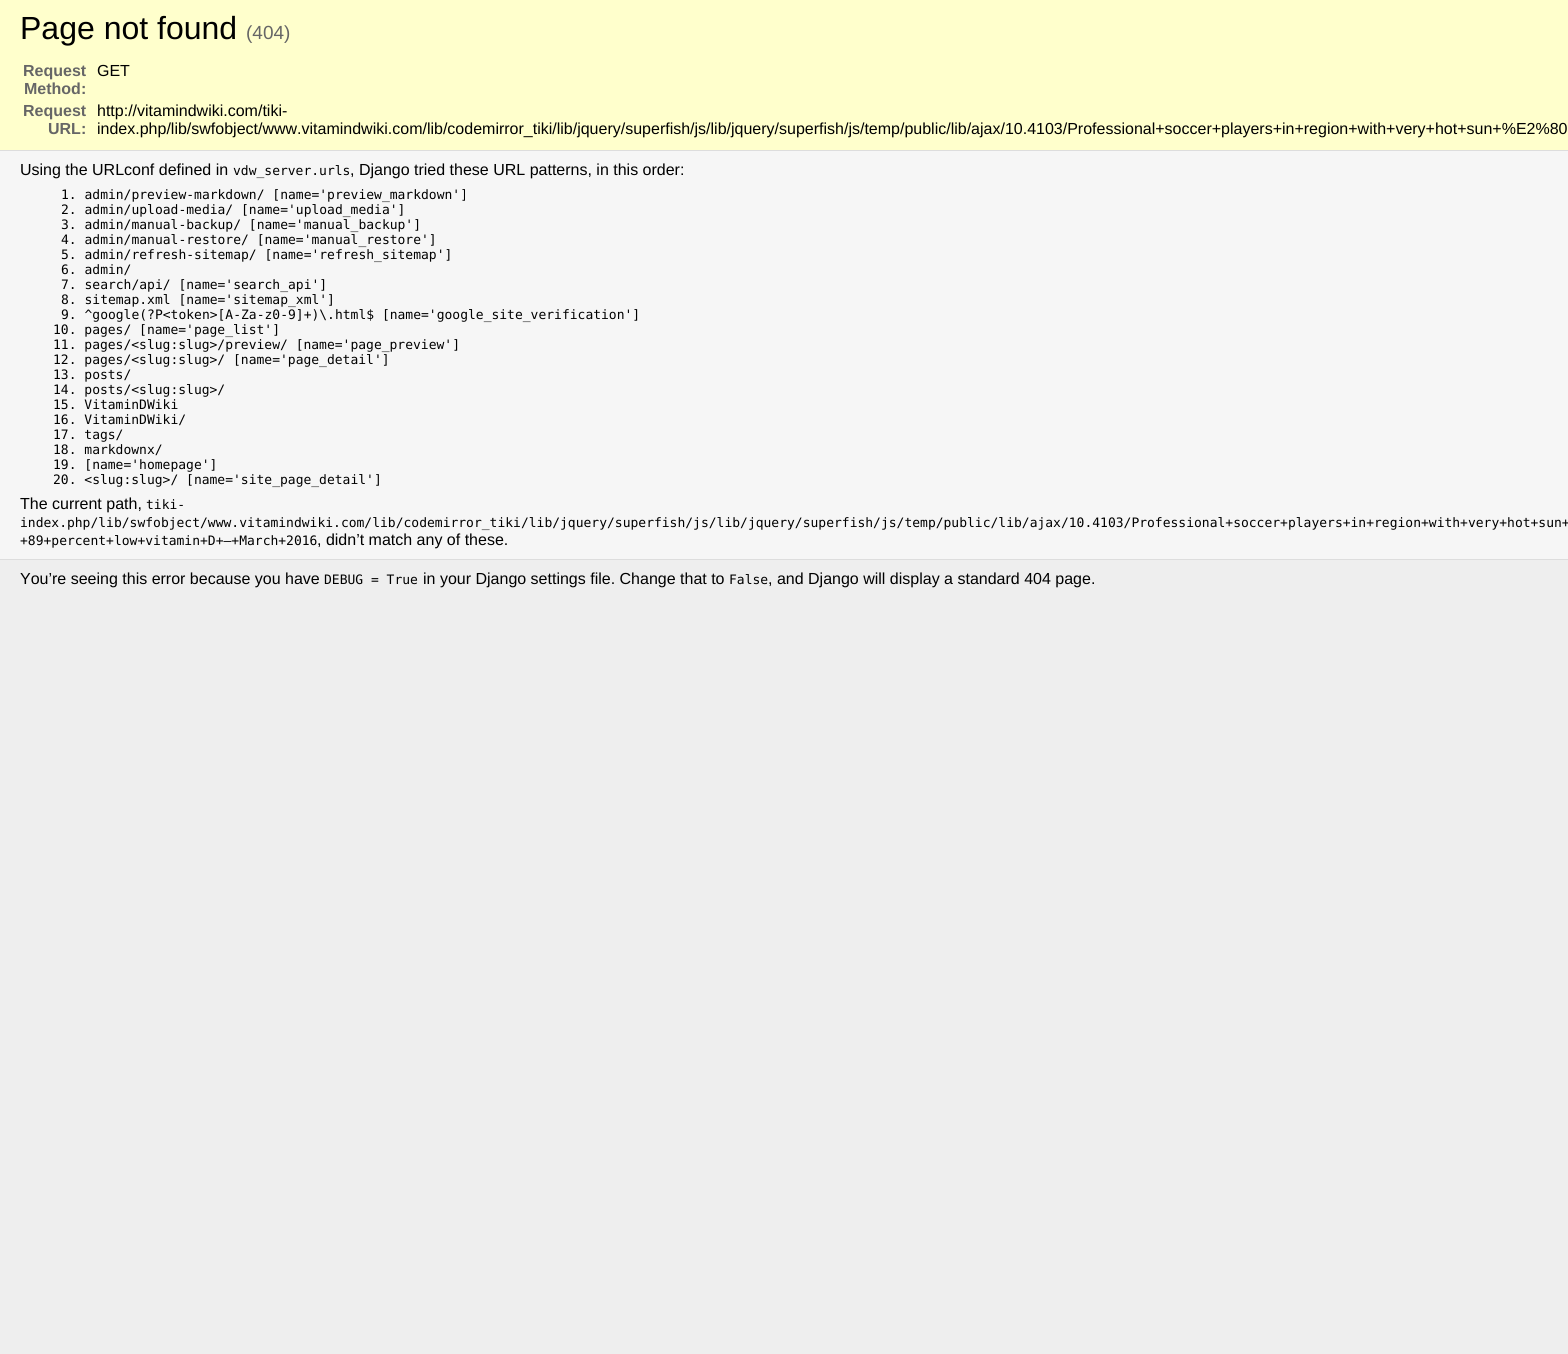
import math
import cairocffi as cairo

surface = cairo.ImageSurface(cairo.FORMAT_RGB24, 1568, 1354)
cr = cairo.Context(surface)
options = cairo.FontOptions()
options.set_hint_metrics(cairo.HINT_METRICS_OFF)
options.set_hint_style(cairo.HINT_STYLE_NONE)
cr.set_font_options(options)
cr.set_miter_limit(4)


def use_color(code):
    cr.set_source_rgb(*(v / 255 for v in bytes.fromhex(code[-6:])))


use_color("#eeeeee")
cr.paint()
use_color("#ffffcc")
cr.rectangle(0, 0, 1568, 150)
cr.fill()
use_color("#dddddd")
cr.rectangle(0, 150, 1568, 1)
cr.fill()
cr.select_font_face("Liberation Sans")
cr.set_font_size(32)
use_color("#000000")
cr.move_to(20, 39)
cr.show_text("Page not found")
cr.set_font_size(19)
use_color("#666666")
cr.move_to(246, 39)
cr.show_text("(404)")
cr.select_font_face("Liberation Sans", cairo.FONT_SLANT_NORMAL, cairo.FONT_WEIGHT_BOLD)
cr.set_font_size(16)
cr.move_to(23, 76)
cr.show_text("Request")
cr.move_to(24, 94)
cr.show_text("Method:")
cr.select_font_face("Liberation Sans")
use_color("#000000")
cr.move_to(97, 76)
cr.show_text("GET")
cr.select_font_face("Liberation Sans", cairo.FONT_SLANT_NORMAL, cairo.FONT_WEIGHT_BOLD)
use_color("#666666")
cr.move_to(23, 116)
cr.show_text("Request")
cr.move_to(48, 134)
cr.show_text("URL:")
cr.select_font_face("Liberation Sans")
use_color("#000000")
cr.move_to(97, 116)
cr.show_text("http://vitamindwiki.com/tiki-")
cr.move_to(97, 134)
cr.show_text("index.php/lib/swfobject/www.vitamindwiki.com/lib/codemirror_tiki/lib/jquery/superfish/js/lib/jquery/superfish/js/temp/public/lib/ajax/10.4103/Professional+soccer+players+in+region+with+very+hot+sun+%E2%80")
use_color("#f6f6f6")
cr.rectangle(0, 151, 1568, 408)
cr.fill()
use_color("#dddddd")
cr.rectangle(0, 559, 1568, 1)
cr.fill()
use_color("#000000")
cr.move_to(20, 175)
cr.show_text("Using the URLconf defined in")
cr.select_font_face("DejaVu Sans Mono")
cr.set_font_size(13)
cr.move_to(233, 175)
cr.show_text("vdw_server.urls")
cr.select_font_face("Liberation Sans")
cr.set_font_size(16)
cr.move_to(350, 175)
cr.show_text(", Django tried these URL patterns, in this order:")
cr.select_font_face("DejaVu Sans Mono")
cr.set_font_size(13)
cr.move_to(61, 199)
cr.show_text("1. admin/preview-markdown/ [name='preview_markdown']")
cr.move_to(61, 214)
cr.show_text("2. admin/upload-media/ [name='upload_media']")
cr.move_to(61, 229)
cr.show_text("3. admin/manual-backup/ [name='manual_backup']")
cr.move_to(61, 244)
cr.show_text("4. admin/manual-restore/ [name='manual_restore']")
cr.move_to(61, 259)
cr.show_text("5. admin/refresh-sitemap/ [name='refresh_sitemap']")
cr.move_to(61, 274)
cr.show_text("6. admin/")
cr.move_to(61, 289)
cr.show_text("7. search/api/ [name='search_api']")
cr.move_to(61, 304)
cr.show_text("8. sitemap.xml [name='sitemap_xml']")
cr.move_to(61, 319)
cr.show_text("9. ^google(?P<token>[A-Za-z0-9]+)\\.html$ [name='google_site_verification']")
cr.move_to(53, 334)
cr.show_text("10. pages/ [name='page_list']")
cr.move_to(53, 349)
cr.show_text("11. pages/<slug:slug>/preview/ [name='page_preview']")
cr.move_to(53, 364)
cr.show_text("12. pages/<slug:slug>/ [name='page_detail']")
cr.move_to(53, 379)
cr.show_text("13. posts/")
cr.move_to(53, 394)
cr.show_text("14. posts/<slug:slug>/")
cr.move_to(53, 409)
cr.show_text("15. VitaminDWiki")
cr.move_to(53, 424)
cr.show_text("16. VitaminDWiki/")
cr.move_to(53, 439)
cr.show_text("17. tags/")
cr.move_to(53, 454)
cr.show_text("18. markdownx/")
cr.move_to(53, 469)
cr.show_text("19. [name='homepage']")
cr.move_to(53, 484)
cr.show_text("20. <slug:slug>/ [name='site_page_detail']")
cr.select_font_face("Liberation Sans")
cr.set_font_size(16)
cr.move_to(20, 509)
cr.show_text("The current path,")
cr.select_font_face("DejaVu Sans Mono")
cr.set_font_size(13)
cr.move_to(146, 509)
cr.show_text("tiki-")
cr.move_to(20, 527)
cr.show_text("index.php/lib/swfobject/www.vitamindwiki.com/lib/codemirror_tiki/lib/jquery/superfish/js/lib/jquery/superfish/js/temp/public/lib/ajax/10.4103/Professional+soccer+players+in+region+with+very+hot+sun+")
cr.move_to(20, 545)
cr.show_text("+89+percent+low+vitamin+D+–+March+2016")
cr.select_font_face("Liberation Sans")
cr.set_font_size(16)
cr.move_to(317, 545)
cr.show_text(", didn’t match any of these.")
cr.move_to(20, 584)
cr.show_text("You’re seeing this error because you have")
cr.select_font_face("DejaVu Sans Mono")
cr.set_font_size(13)
cr.move_to(324, 584)
cr.show_text("DEBUG = True")
cr.select_font_face("Liberation Sans")
cr.set_font_size(16)
cr.move_to(423, 584)
cr.show_text("in your Django settings file. Change that to")
cr.select_font_face("DejaVu Sans Mono")
cr.set_font_size(13)
cr.move_to(729, 584)
cr.show_text("False")
cr.select_font_face("Liberation Sans")
cr.set_font_size(16)
cr.move_to(768, 584)
cr.show_text(", and Django will display a standard 404 page.")
surface.write_to_png("result.png")
